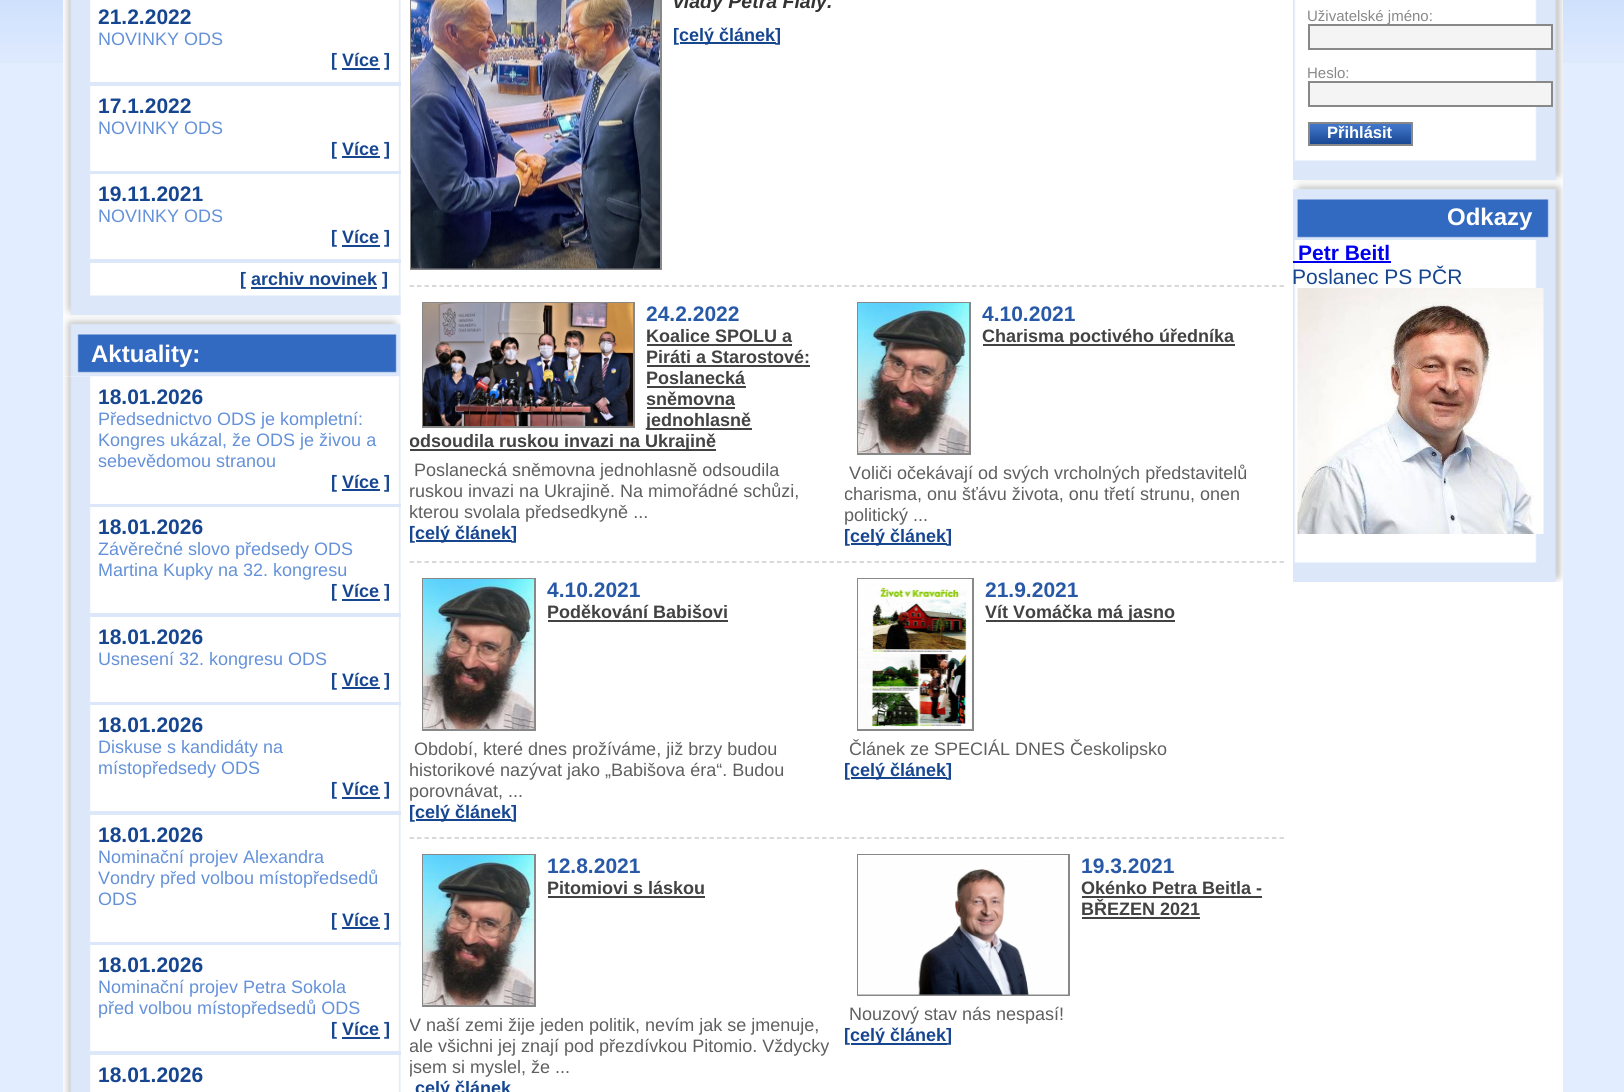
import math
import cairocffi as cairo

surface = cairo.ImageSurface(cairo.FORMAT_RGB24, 1624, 1092)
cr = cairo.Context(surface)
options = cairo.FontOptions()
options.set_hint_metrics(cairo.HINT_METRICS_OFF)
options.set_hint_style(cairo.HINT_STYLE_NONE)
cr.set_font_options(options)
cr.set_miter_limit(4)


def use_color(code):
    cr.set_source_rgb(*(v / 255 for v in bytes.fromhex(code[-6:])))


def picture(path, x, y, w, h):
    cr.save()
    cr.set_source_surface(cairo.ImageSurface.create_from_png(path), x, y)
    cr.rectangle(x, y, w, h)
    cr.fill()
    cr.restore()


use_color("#e2edff")
cr.paint()
picture("img1.png", 0, 0, 1624, 63)
use_color("#ffffff")
cr.rectangle(63, 0, 1500, 1092)
cr.fill()
picture("img2.png", 63, 0, 338, 315)
use_color("#dce7f9")
cr.rectangle(90, 82, 311, 4)
cr.fill()
cr.select_font_face("Liberation Sans", cairo.FONT_SLANT_NORMAL, cairo.FONT_WEIGHT_BOLD)
cr.set_font_size(21)
use_color("#174691")
cr.move_to(98, 24)
cr.show_text("21.2.2022")
cr.select_font_face("Liberation Sans")
cr.set_font_size(18)
use_color("#6491d9")
cr.move_to(98, 45)
cr.show_text("NOVINKY ODS")
cr.select_font_face("Liberation Sans", cairo.FONT_SLANT_NORMAL, cairo.FONT_WEIGHT_BOLD)
use_color("#174691")
cr.move_to(331, 66)
cr.show_text("[ Více ]")
cr.rectangle(342, 68, 38, 2)
cr.fill()
use_color("#dce7f9")
cr.rectangle(90, 171, 311, 3)
cr.fill()
cr.set_font_size(21)
use_color("#174691")
cr.move_to(98, 113)
cr.show_text("17.1.2022")
cr.select_font_face("Liberation Sans")
cr.set_font_size(18)
use_color("#6491d9")
cr.move_to(98, 134)
cr.show_text("NOVINKY ODS")
cr.select_font_face("Liberation Sans", cairo.FONT_SLANT_NORMAL, cairo.FONT_WEIGHT_BOLD)
use_color("#174691")
cr.move_to(331, 155)
cr.show_text("[ Více ]")
cr.rectangle(342, 156, 38, 2)
cr.fill()
use_color("#dce7f9")
cr.rectangle(90, 259, 311, 4)
cr.fill()
cr.set_font_size(21)
use_color("#174691")
cr.move_to(98, 201)
cr.show_text("19.11.2021")
cr.select_font_face("Liberation Sans")
cr.set_font_size(18)
use_color("#6491d9")
cr.move_to(98, 222)
cr.show_text("NOVINKY ODS")
cr.select_font_face("Liberation Sans", cairo.FONT_SLANT_NORMAL, cairo.FONT_WEIGHT_BOLD)
use_color("#174691")
cr.move_to(331, 243)
cr.show_text("[ Více ]")
cr.rectangle(342, 245, 38, 2)
cr.fill()
cr.move_to(240, 285)
cr.show_text("[ archiv novinek ]")
cr.rectangle(251, 287, 126, 2)
cr.fill()
picture("img3.png", 64, 295, 337, 20)
picture("img4.png", 63, 315, 338, 62)
cr.set_font_size(24)
use_color("#ffffff")
cr.move_to(91, 362)
cr.show_text("Aktuality:")
picture("img5.png", 63, 376, 338, 716)
use_color("#dce7f9")
cr.rectangle(90, 504, 311, 3)
cr.fill()
cr.set_font_size(21)
use_color("#174691")
cr.move_to(98, 404)
cr.show_text("18.01.2026")
cr.select_font_face("Liberation Sans")
cr.set_font_size(18)
use_color("#6491d9")
cr.move_to(98, 425)
cr.show_text("Předsednictvo ODS je kompletní:")
cr.move_to(98, 446)
cr.show_text("Kongres ukázal, že ODS je živou a")
cr.move_to(98, 467)
cr.show_text("sebevědomou stranou")
cr.select_font_face("Liberation Sans", cairo.FONT_SLANT_NORMAL, cairo.FONT_WEIGHT_BOLD)
use_color("#174691")
cr.move_to(331, 488)
cr.show_text("[ Více ]")
cr.rectangle(342, 489, 38, 2)
cr.fill()
use_color("#dce7f9")
cr.rectangle(90, 613, 311, 4)
cr.fill()
cr.set_font_size(21)
use_color("#174691")
cr.move_to(98, 534)
cr.show_text("18.01.2026")
cr.select_font_face("Liberation Sans")
cr.set_font_size(18)
use_color("#6491d9")
cr.move_to(98, 555)
cr.show_text("Závěrečné slovo předsedy ODS")
cr.move_to(98, 576)
cr.show_text("Martina Kupky na 32. kongresu")
cr.select_font_face("Liberation Sans", cairo.FONT_SLANT_NORMAL, cairo.FONT_WEIGHT_BOLD)
use_color("#174691")
cr.move_to(331, 597)
cr.show_text("[ Více ]")
cr.rectangle(342, 599, 38, 2)
cr.fill()
use_color("#dce7f9")
cr.rectangle(90, 702, 311, 3)
cr.fill()
cr.set_font_size(21)
use_color("#174691")
cr.move_to(98, 644)
cr.show_text("18.01.2026")
cr.select_font_face("Liberation Sans")
cr.set_font_size(18)
use_color("#6491d9")
cr.move_to(98, 665)
cr.show_text("Usnesení 32. kongresu ODS")
cr.select_font_face("Liberation Sans", cairo.FONT_SLANT_NORMAL, cairo.FONT_WEIGHT_BOLD)
use_color("#174691")
cr.move_to(331, 686)
cr.show_text("[ Více ]")
cr.rectangle(342, 687, 38, 2)
cr.fill()
use_color("#dce7f9")
cr.rectangle(90, 811, 311, 4)
cr.fill()
cr.set_font_size(21)
use_color("#174691")
cr.move_to(98, 732)
cr.show_text("18.01.2026")
cr.select_font_face("Liberation Sans")
cr.set_font_size(18)
use_color("#6491d9")
cr.move_to(98, 753)
cr.show_text("Diskuse s kandidáty na")
cr.move_to(98, 774)
cr.show_text("místopředsedy ODS")
cr.select_font_face("Liberation Sans", cairo.FONT_SLANT_NORMAL, cairo.FONT_WEIGHT_BOLD)
use_color("#174691")
cr.move_to(331, 795)
cr.show_text("[ Více ]")
cr.rectangle(342, 797, 38, 2)
cr.fill()
use_color("#dce7f9")
cr.rectangle(90, 942, 311, 3)
cr.fill()
cr.set_font_size(21)
use_color("#174691")
cr.move_to(98, 842)
cr.show_text("18.01.2026")
cr.select_font_face("Liberation Sans")
cr.set_font_size(18)
use_color("#6491d9")
cr.move_to(98, 863)
cr.show_text("Nominační projev Alexandra")
cr.move_to(98, 884)
cr.show_text("Vondry před volbou místopředsedů")
cr.move_to(98, 905)
cr.show_text("ODS")
cr.select_font_face("Liberation Sans", cairo.FONT_SLANT_NORMAL, cairo.FONT_WEIGHT_BOLD)
use_color("#174691")
cr.move_to(331, 926)
cr.show_text("[ Více ]")
cr.rectangle(342, 927, 38, 2)
cr.fill()
use_color("#dce7f9")
cr.rectangle(90, 1051, 311, 4)
cr.fill()
cr.set_font_size(21)
use_color("#174691")
cr.move_to(98, 972)
cr.show_text("18.01.2026")
cr.select_font_face("Liberation Sans")
cr.set_font_size(18)
use_color("#6491d9")
cr.move_to(98, 993)
cr.show_text("Nominační projev Petra Sokola")
cr.move_to(98, 1014)
cr.show_text("před volbou místopředsedů ODS")
cr.select_font_face("Liberation Sans", cairo.FONT_SLANT_NORMAL, cairo.FONT_WEIGHT_BOLD)
use_color("#174691")
cr.move_to(331, 1035)
cr.show_text("[ Více ]")
cr.rectangle(342, 1037, 38, 2)
cr.fill()
cr.set_font_size(21)
cr.move_to(98, 1082)
cr.show_text("18.01.2026")
cr.new_path()
cr.move_to(409.5, 286)
cr.line_to(1284, 286)
use_color("#cccccc")
cr.set_line_width(1.5)
cr.set_dash([4.5, 3])
cr.stroke()
cr.rectangle(411, -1, 250, 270)
use_color("#888888")
cr.set_line_width(2)
cr.set_dash([])
cr.stroke()
picture("img6.png", 411, 0, 249, 269)
cr.select_font_face("Liberation Sans", cairo.FONT_SLANT_ITALIC, cairo.FONT_WEIGHT_BOLD)
cr.set_font_size(19.5)
use_color("#333333")
cr.move_to(673, 8)
cr.show_text("vlády Petra Fialy.")
cr.select_font_face("Liberation Sans", cairo.FONT_SLANT_NORMAL, cairo.FONT_WEIGHT_BOLD)
cr.set_font_size(18)
use_color("#174691")
cr.move_to(673, 41)
cr.show_text("[")
cr.rectangle(680, 42, 96, 2)
cr.fill()
cr.move_to(679, 41)
cr.show_text("celý článek]")
cr.new_path()
cr.move_to(409.5, 562)
cr.line_to(1284, 562)
use_color("#cccccc")
cr.set_line_width(1.5)
cr.set_dash([4.5, 3])
cr.stroke()
cr.rectangle(423, 303, 211, 124)
use_color("#888888")
cr.set_line_width(2)
cr.set_dash([])
cr.stroke()
picture("img7.png", 423, 303, 210, 123)
cr.set_font_size(21)
use_color("#2859a7")
cr.move_to(646, 321)
cr.show_text("24.2.2022")
cr.set_font_size(18)
use_color("#424242")
cr.move_to(646, 342)
cr.show_text("Koalice SPOLU a")
cr.rectangle(647, 344, 145, 2)
cr.fill()
cr.move_to(646, 363)
cr.show_text("Piráti a Starostové:")
cr.rectangle(647, 365, 163, 2)
cr.fill()
cr.move_to(646, 384)
cr.show_text("Poslanecká")
cr.rectangle(647, 386, 99, 2)
cr.fill()
cr.move_to(646, 405)
cr.show_text("sněmovna")
cr.rectangle(647, 407, 88, 2)
cr.fill()
cr.rectangle(647, 428, 105, 2)
cr.fill()
cr.move_to(646, 426)
cr.show_text("jednohlasně")
cr.rectangle(410, 449, 306, 2)
cr.fill()
cr.save()
cr.rectangle(410, 287, 435, 271)
cr.clip()
cr.move_to(409, 447)
cr.show_text("odsoudila ruskou invazi na Ukrajině")
cr.restore()
cr.select_font_face("Liberation Sans")
use_color("#5f5f5f")
cr.move_to(414, 476)
cr.show_text("Poslanecká sněmovna jednohlasně odsoudila")
cr.move_to(409, 497)
cr.show_text("ruskou invazi na Ukrajině. Na mimořádné schůzi,")
cr.move_to(409, 518)
cr.show_text("kterou svolala předsedkyně ...")
cr.save()
cr.rectangle(410, 287, 435, 271)
cr.clip()
cr.select_font_face("Liberation Sans", cairo.FONT_SLANT_NORMAL, cairo.FONT_WEIGHT_BOLD)
use_color("#174691")
cr.move_to(409, 539)
cr.show_text("[")
cr.restore()
use_color("#174691")
cr.rectangle(416, 540, 96, 2)
cr.fill()
cr.select_font_face("Liberation Sans", cairo.FONT_SLANT_NORMAL, cairo.FONT_WEIGHT_BOLD)
cr.move_to(415, 539)
cr.show_text("celý článek]")
cr.rectangle(858, 303, 112, 151)
use_color("#888888")
cr.stroke()
picture("img8.png", 858, 303, 111, 150)
cr.set_font_size(21)
use_color("#2859a7")
cr.move_to(982, 321)
cr.show_text("4.10.2021")
use_color("#424242")
cr.rectangle(983, 344, 252, 2)
cr.fill()
cr.set_font_size(18)
cr.move_to(982, 342)
cr.show_text("Charisma poctivého úředníka")
cr.select_font_face("Liberation Sans")
use_color("#5f5f5f")
cr.move_to(849, 479)
cr.show_text("Voliči očekávají od svých vrcholných představitelů")
cr.save()
cr.rectangle(845, 287, 435, 274)
cr.clip()
cr.move_to(844, 500)
cr.show_text("charisma, onu šťávu života, onu třetí strunu, onen")
cr.restore()
cr.move_to(844, 521)
cr.show_text("politický ...")
cr.save()
cr.rectangle(845, 287, 435, 274)
cr.clip()
cr.select_font_face("Liberation Sans", cairo.FONT_SLANT_NORMAL, cairo.FONT_WEIGHT_BOLD)
use_color("#174691")
cr.move_to(844, 542)
cr.show_text("[")
cr.restore()
use_color("#174691")
cr.rectangle(851, 543, 96, 2)
cr.fill()
cr.select_font_face("Liberation Sans", cairo.FONT_SLANT_NORMAL, cairo.FONT_WEIGHT_BOLD)
cr.move_to(850, 542)
cr.show_text("celý článek]")
cr.new_path()
cr.move_to(409.5, 838)
cr.line_to(1284, 838)
use_color("#cccccc")
cr.set_line_width(1.5)
cr.set_dash([4.5, 3])
cr.stroke()
cr.rectangle(423, 579, 112, 151)
use_color("#888888")
cr.set_line_width(2)
cr.set_dash([])
cr.stroke()
picture("img8.png", 423, 579, 111, 150)
cr.set_font_size(21)
use_color("#2859a7")
cr.move_to(547, 597)
cr.show_text("4.10.2021")
cr.set_font_size(18)
use_color("#424242")
cr.move_to(547, 618)
cr.show_text("Poděkování Babišovi")
cr.rectangle(548, 620, 180, 2)
cr.fill()
cr.select_font_face("Liberation Sans")
use_color("#5f5f5f")
cr.move_to(414, 755)
cr.show_text("Období, které dnes prožíváme, již brzy budou")
cr.move_to(409, 776)
cr.show_text("historikové nazývat jako „Babišova éra“. Budou")
cr.move_to(409, 797)
cr.show_text("porovnávat, ...")
cr.save()
cr.rectangle(410, 563, 435, 274)
cr.clip()
cr.select_font_face("Liberation Sans", cairo.FONT_SLANT_NORMAL, cairo.FONT_WEIGHT_BOLD)
use_color("#174691")
cr.move_to(409, 818)
cr.show_text("[")
cr.restore()
use_color("#174691")
cr.rectangle(416, 819, 96, 2)
cr.fill()
cr.select_font_face("Liberation Sans", cairo.FONT_SLANT_NORMAL, cairo.FONT_WEIGHT_BOLD)
cr.move_to(415, 818)
cr.show_text("celý článek]")
cr.rectangle(858, 579, 115, 151)
use_color("#888888")
cr.stroke()
picture("img9.png", 858, 579, 114, 150)
cr.set_font_size(21)
use_color("#2859a7")
cr.move_to(985, 597)
cr.show_text("21.9.2021")
use_color("#424242")
cr.rectangle(986, 620, 189, 2)
cr.fill()
cr.set_font_size(18)
cr.move_to(985, 618)
cr.show_text("Vít Vomáčka má jasno")
cr.select_font_face("Liberation Sans")
use_color("#5f5f5f")
cr.move_to(849, 755)
cr.show_text("Článek ze SPECIÁL DNES Českolipsko")
cr.save()
cr.rectangle(845, 563, 435, 232)
cr.clip()
cr.select_font_face("Liberation Sans", cairo.FONT_SLANT_NORMAL, cairo.FONT_WEIGHT_BOLD)
use_color("#174691")
cr.move_to(844, 776)
cr.show_text("[")
cr.restore()
use_color("#174691")
cr.rectangle(851, 777, 96, 2)
cr.fill()
cr.select_font_face("Liberation Sans", cairo.FONT_SLANT_NORMAL, cairo.FONT_WEIGHT_BOLD)
cr.move_to(850, 776)
cr.show_text("celý článek]")
cr.rectangle(423, 855, 112, 151)
use_color("#888888")
cr.stroke()
picture("img8.png", 423, 855, 111, 150)
cr.set_font_size(21)
use_color("#2859a7")
cr.move_to(547, 873)
cr.show_text("12.8.2021")
cr.set_font_size(18)
use_color("#424242")
cr.move_to(547, 894)
cr.show_text("Pitomiovi s láskou")
cr.rectangle(548, 896, 157, 2)
cr.fill()
cr.save()
cr.rectangle(410, 839, 435, 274)
cr.clip()
cr.select_font_face("Liberation Sans")
use_color("#5f5f5f")
cr.move_to(409, 1031)
cr.show_text("V naší zemi žije jeden politik, nevím jak se jmenuje,")
cr.move_to(409, 1052)
cr.show_text("ale všichni jej znají pod přezdívkou Pitomio. Vždycky")
cr.move_to(409, 1073)
cr.show_text("jsem si myslel, že ...")
cr.restore()
use_color("#174691")
cr.move_to(415, 1094)
cr.show_text("celý článek")
cr.rectangle(858, 855, 211, 140)
use_color("#888888")
cr.stroke()
picture("img10.png", 858, 855, 210, 140)
cr.set_font_size(21)
use_color("#2859a7")
cr.move_to(1081, 873)
cr.show_text("19.3.2021")
cr.set_font_size(18)
use_color("#424242")
cr.move_to(1081, 894)
cr.show_text("Okénko Petra Beitla -")
cr.rectangle(1082, 896, 180, 2)
cr.fill()
cr.move_to(1081, 915)
cr.show_text("BŘEZEN 2021")
cr.rectangle(1082, 917, 118, 2)
cr.fill()
cr.select_font_face("Liberation Sans")
use_color("#5f5f5f")
cr.move_to(849, 1020)
cr.show_text("Nouzový stav nás nespasí!")
cr.save()
cr.rectangle(845, 839, 435, 222)
cr.clip()
cr.select_font_face("Liberation Sans", cairo.FONT_SLANT_NORMAL, cairo.FONT_WEIGHT_BOLD)
use_color("#174691")
cr.move_to(844, 1041)
cr.show_text("[")
cr.restore()
use_color("#174691")
cr.rectangle(851, 1043, 96, 2)
cr.fill()
cr.select_font_face("Liberation Sans", cairo.FONT_SLANT_NORMAL, cairo.FONT_WEIGHT_BOLD)
cr.move_to(850, 1041)
cr.show_text("celý článek]")
picture("img11.png", 1293, 0, 270, 180)
cr.select_font_face("Liberation Sans")
cr.set_font_size(15)
use_color("#888888")
cr.move_to(1307, 21)
cr.show_text("Uživatelské jméno:")
use_color("#f4f4f4")
cr.rectangle(1309, 25, 243, 24)
cr.fill_preserve()
use_color("#888888")
cr.stroke()
cr.move_to(1307, 78)
cr.show_text("Heslo:")
use_color("#f4f4f4")
cr.rectangle(1309, 82, 243, 24)
cr.fill_preserve()
use_color("#888888")
cr.stroke()
picture("img12.png", 1310, 124, 101, 20)
cr.rectangle(1309, 123, 103, 22)
cr.stroke()
cr.select_font_face("Liberation Sans", cairo.FONT_SLANT_NORMAL, cairo.FONT_WEIGHT_BOLD)
cr.set_font_size(16.5)
use_color("#ffffff")
cr.move_to(1327, 138)
cr.show_text("Přihlásit")
picture("img13.png", 1294, 160, 269, 20)
picture("img14.png", 1293, 240, 270, 342)
picture("img15.png", 1293, 180, 270, 60)
cr.set_font_size(24)
cr.move_to(1447, 225)
cr.show_text("Odkazy")
cr.set_font_size(21)
use_color("#0000ee")
cr.move_to(1298, 260)
cr.show_text("Petr Beitl")
cr.rectangle(1293, 261, 98, 2)
cr.fill()
cr.select_font_face("Liberation Sans")
use_color("#174691")
cr.move_to(1292, 284)
cr.show_text("Poslanec PS PČR")
picture("img16.png", 1297, 288, 247, 246)
picture("img13.png", 1294, 562, 269, 20)
surface.write_to_png("result.png")
